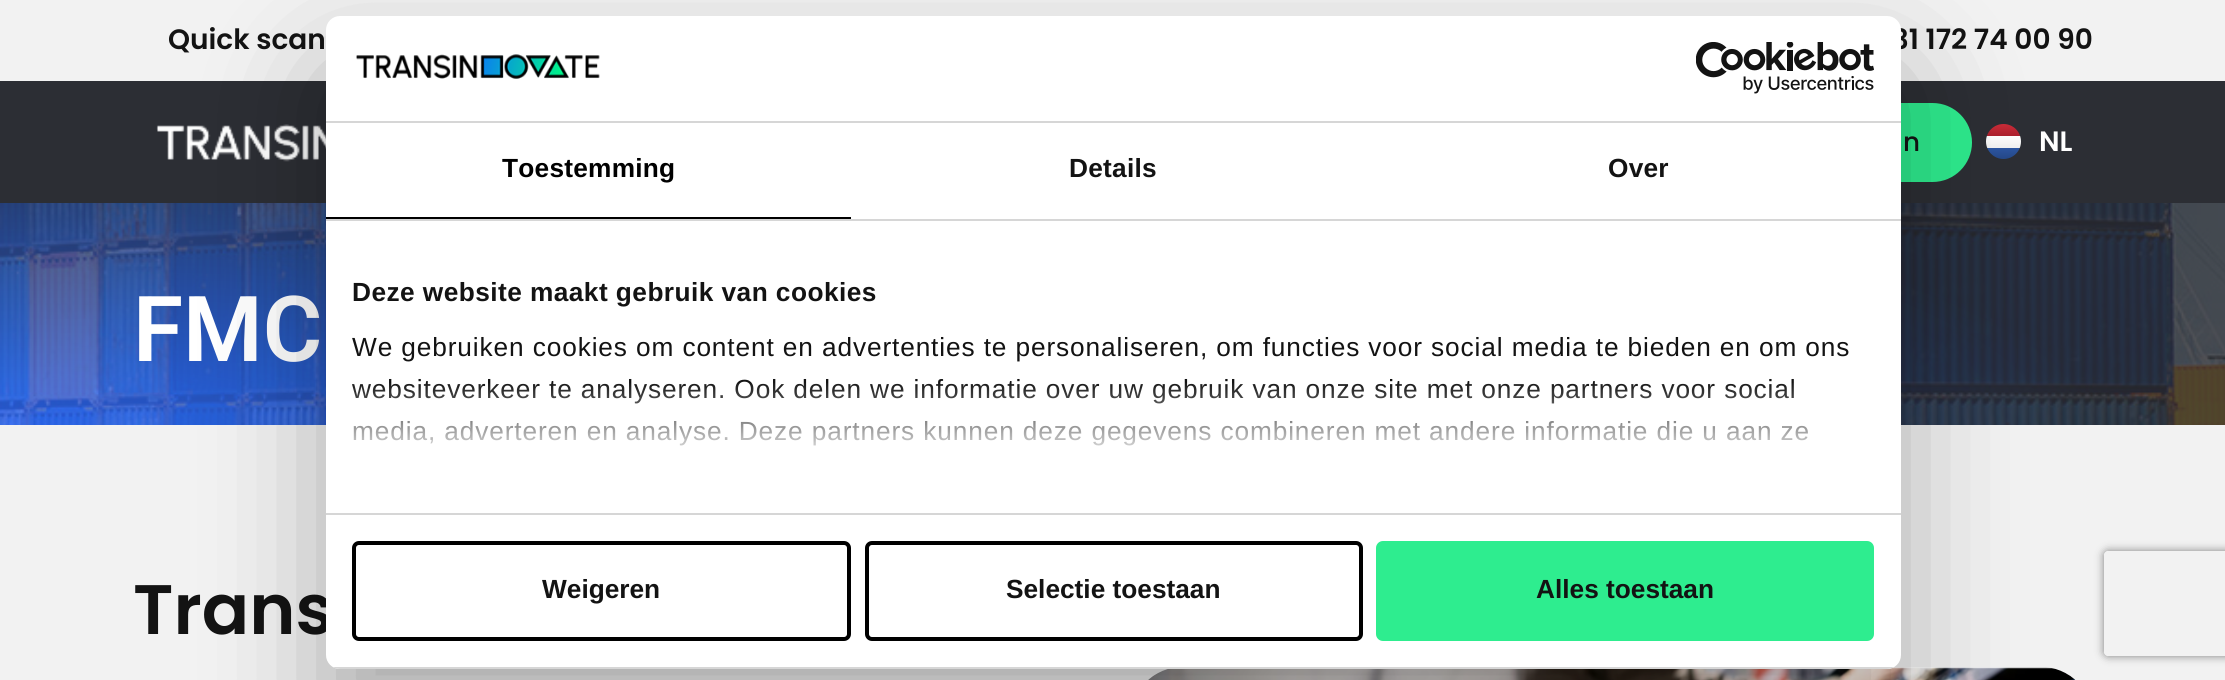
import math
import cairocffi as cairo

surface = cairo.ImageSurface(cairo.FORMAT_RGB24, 2225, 680)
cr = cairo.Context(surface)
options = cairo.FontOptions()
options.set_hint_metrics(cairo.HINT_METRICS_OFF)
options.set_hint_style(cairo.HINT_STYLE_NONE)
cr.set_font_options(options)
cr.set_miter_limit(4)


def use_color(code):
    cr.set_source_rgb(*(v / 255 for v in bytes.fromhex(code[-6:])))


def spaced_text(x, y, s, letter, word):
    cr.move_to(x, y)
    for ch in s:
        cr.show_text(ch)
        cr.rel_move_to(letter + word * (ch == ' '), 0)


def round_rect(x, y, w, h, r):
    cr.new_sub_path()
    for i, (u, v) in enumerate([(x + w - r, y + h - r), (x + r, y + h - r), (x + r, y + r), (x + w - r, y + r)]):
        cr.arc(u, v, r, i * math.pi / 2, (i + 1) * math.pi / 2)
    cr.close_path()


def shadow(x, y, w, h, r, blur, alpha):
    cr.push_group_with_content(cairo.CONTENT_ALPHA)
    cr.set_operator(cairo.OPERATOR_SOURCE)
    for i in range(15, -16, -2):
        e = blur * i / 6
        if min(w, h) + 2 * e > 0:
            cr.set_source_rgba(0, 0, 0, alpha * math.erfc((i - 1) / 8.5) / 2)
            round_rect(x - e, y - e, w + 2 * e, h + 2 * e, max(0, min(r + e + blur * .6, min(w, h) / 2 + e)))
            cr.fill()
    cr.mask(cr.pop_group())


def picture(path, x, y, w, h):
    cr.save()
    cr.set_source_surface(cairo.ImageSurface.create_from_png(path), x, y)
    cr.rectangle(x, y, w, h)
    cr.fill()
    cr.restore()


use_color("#ffffff")
cr.paint()
use_color("#f2f2f2")
cr.rectangle(0, 0, 2225, 81)
cr.fill()
cr.select_font_face("Poppins SemiBold")
cr.set_font_size(28)
use_color("#131313")
cr.move_to(168, 49)
cr.show_text("Quick scan")
cr.move_to(1892, 49)
cr.show_text("31 172 74 00 90")
use_color("#2c2e34")
cr.rectangle(0, 81, 2225, 122)
cr.fill()
picture("img1.png", 156, 124, 170, 38)
use_color("#2eed8f")
round_rect(1687, 103, 285, 79, 39.5)
cr.fill()
cr.select_font_face("Poppins Medium")
cr.set_font_size(26.25)
use_color("#131313")
cr.move_to(1903, 151)
cr.show_text("n")
cr.save()
round_rect(1986, 124, 35, 35, 17.5)
cr.clip()
gradient = cairo.LinearGradient(2004, 124, 2004, 136)
gradient.add_color_stop_rgba(0, 0.792, 0.169, 0.224, 1)
gradient.add_color_stop_rgba(1, 0.675, 0.122, 0.173, 1)
cr.set_source(gradient)
cr.rectangle(1987, 124, 33, 12)
cr.fill()
gradient = cairo.LinearGradient(2004, 136, 2004, 148)
gradient.add_color_stop_rgba(0, 1, 1, 1, 1)
gradient.add_color_stop_rgba(1, 0.941, 0.941, 0.941, 1)
cr.set_source(gradient)
cr.rectangle(1986, 136, 35, 12)
cr.fill()
gradient = cairo.LinearGradient(2004, 148, 2004, 159)
gradient.add_color_stop_rgba(0, 0.173, 0.337, 0.635, 1)
gradient.add_color_stop_rgba(1, 0.141, 0.282, 0.537, 1)
cr.set_source(gradient)
cr.rectangle(1987, 148, 33, 11)
cr.fill()
cr.restore()
cr.select_font_face("Poppins SemiBold")
cr.set_font_size(28)
use_color("#ffffff")
cr.move_to(2039, 151)
cr.show_text("NL")
picture("img2.png", 0, 203, 2225, 222)
cr.select_font_face("Roboto SemiBold")
cr.set_font_size(91)
cr.move_to(133, 361)
cr.show_text("FMC")
use_color("#f2f2f2")
cr.rectangle(0, 425, 2225, 255)
cr.fill()
cr.select_font_face("Poppins SemiBold")
cr.set_font_size(70)
use_color("#131313")
cr.move_to(133, 634)
cr.show_text("Trans")
picture("img3.png", 1148, 667, 928, 13)
cr.save()
cr.set_fill_rule(cairo.FILL_RULE_EVEN_ODD)
cr.new_path()
cr.move_to(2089, 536)
cr.line_to(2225, 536)
cr.line_to(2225, 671)
cr.line_to(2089, 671)
cr.close_path()
cr.move_to(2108, 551)
cr.line_to(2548, 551)
cr.curve_to(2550, 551, 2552, 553, 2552, 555)
cr.line_to(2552, 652)
cr.curve_to(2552, 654, 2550, 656, 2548, 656)
cr.line_to(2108, 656)
cr.curve_to(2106, 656, 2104, 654, 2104, 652)
cr.line_to(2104, 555)
cr.curve_to(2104, 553, 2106, 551, 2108, 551)
cr.close_path()
cr.clip()
use_color("#808080")
shadow(2104, 551, 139, 105, 4, 4.5, 1)
cr.restore()
use_color("#000000")
shadow(326, 72, 1575, 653, 14, 59.5, 0.3)
use_color("#ffffff")
round_rect(326, 16, 1575, 653, 14)
cr.fill()
use_color("#d6d6d6")
cr.rectangle(326, 121, 1575, 2)
cr.fill()
picture("img4.png", 356, 54, 244, 25)
picture("img5.png", 1696, 42, 178, 52)
cr.rectangle(326, 219, 1575, 2)
cr.fill()
use_color("#000000")
cr.rectangle(326, 217, 525, 2)
cr.fill()
cr.select_font_face("Liberation Sans", cairo.FONT_SLANT_NORMAL, cairo.FONT_WEIGHT_BOLD)
cr.set_font_size(26.25)
spaced_text(502, 177, "Toestemming", 0.25, 0)
use_color("#131313")
spaced_text(1069, 177, "Details", 0.25, 0)
spaced_text(1608, 177, "Over", 0.25, 0)
use_color("#d6d6d6")
cr.rectangle(326, 513, 1575, 2)
cr.fill()
use_color("#131313")
spaced_text(352, 301, "Deze website maakt gebruik van cookies", 0.45, 0)
cr.select_font_face("Liberation Sans")
spaced_text(352, 356, "We gebruiken cookies om content en advertenties te personaliseren, om functies voor social media te bieden en om ons", 0.88, 0)
spaced_text(352, 398, "websiteverkeer te analyseren. Ook delen we informatie over uw gebruik van onze site met onze partners voor social", 0.88, 0)
spaced_text(352, 440, "media, adverteren en analyse. Deze partners kunnen deze gegevens combineren met andere informatie die u aan ze", 0.88, 0)
gradient = cairo.LinearGradient(1102, 512, 1102, 381)
gradient.add_color_stop_rgba(0, 1, 1, 1, 1)
gradient.add_color_stop_rgba(0.5, 1, 1, 1, 0.8)
gradient.add_color_stop_rgba(1, 1, 1, 1, 0)
cr.set_source(gradient)
cr.rectangle(352, 383, 1456, 63)
cr.fill()
cr.save()
round_rect(326, 16, 1575, 653, 14)
cr.clip()
use_color("#d6d6d6")
cr.rectangle(326, 667, 1575, 2)
cr.fill()
cr.restore()
round_rect(354, 543, 495, 96, 5)
use_color("#000000")
cr.set_line_width(4)
cr.stroke()
cr.select_font_face("Liberation Sans", cairo.FONT_SLANT_NORMAL, cairo.FONT_WEIGHT_BOLD)
use_color("#131313")
cr.move_to(542, 598)
cr.show_text("Weigeren")
round_rect(867, 543, 494, 96, 5)
use_color("#000000")
cr.stroke()
use_color("#131313")
cr.move_to(1006, 598)
cr.show_text("Selectie toestaan")
use_color("#2eed8f")
round_rect(1378, 543, 494, 96, 5)
cr.fill_preserve()
cr.stroke()
use_color("#131313")
cr.move_to(1536, 598)
cr.show_text("Alles toestaan")
surface.write_to_png("result.png")
